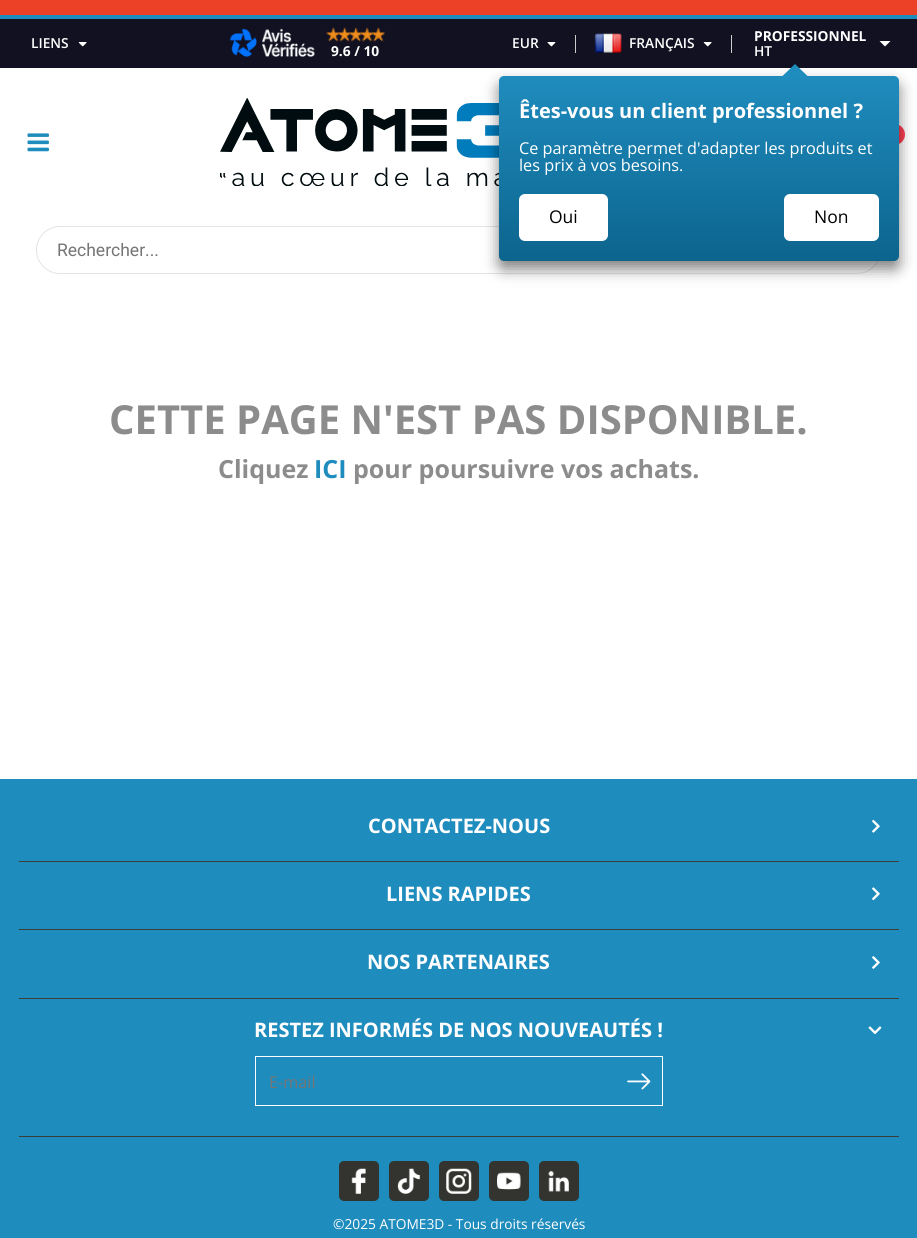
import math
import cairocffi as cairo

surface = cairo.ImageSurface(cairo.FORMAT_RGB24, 917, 1238)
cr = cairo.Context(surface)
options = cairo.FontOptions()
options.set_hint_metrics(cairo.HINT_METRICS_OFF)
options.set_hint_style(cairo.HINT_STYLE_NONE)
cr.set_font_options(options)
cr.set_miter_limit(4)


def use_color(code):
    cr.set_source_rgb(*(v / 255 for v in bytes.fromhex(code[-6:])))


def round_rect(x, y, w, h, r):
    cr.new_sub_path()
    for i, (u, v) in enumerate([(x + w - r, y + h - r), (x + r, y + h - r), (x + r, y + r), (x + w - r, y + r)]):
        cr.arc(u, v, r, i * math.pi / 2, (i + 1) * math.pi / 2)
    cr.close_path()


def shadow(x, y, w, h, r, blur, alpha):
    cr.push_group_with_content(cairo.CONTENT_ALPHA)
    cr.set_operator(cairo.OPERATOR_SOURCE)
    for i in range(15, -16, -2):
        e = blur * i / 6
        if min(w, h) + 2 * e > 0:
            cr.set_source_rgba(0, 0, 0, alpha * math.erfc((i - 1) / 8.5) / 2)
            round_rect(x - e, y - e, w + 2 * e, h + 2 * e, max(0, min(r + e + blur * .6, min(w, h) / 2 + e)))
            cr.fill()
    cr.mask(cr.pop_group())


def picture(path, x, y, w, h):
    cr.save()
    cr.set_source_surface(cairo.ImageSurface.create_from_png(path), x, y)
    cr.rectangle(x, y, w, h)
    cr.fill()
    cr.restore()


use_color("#ffffff")
cr.paint()
use_color("#ec4126")
cr.rectangle(0, 0, 917, 15)
cr.fill()
use_color("#1f8cbe")
cr.rectangle(0, 15, 917, 4)
cr.fill()
use_color("#111122")
cr.rectangle(0, 19, 917, 49)
cr.fill()
cr.select_font_face("Open Sans", cairo.FONT_SLANT_NORMAL, cairo.FONT_WEIGHT_BOLD)
cr.set_font_size(13.75)
use_color("#ffffff")
cr.move_to(754, 41)
cr.show_text("PROFESSIONNEL")
cr.select_font_face("Open Sans SemiBold")
cr.move_to(754, 56)
cr.show_text("HT")
cr.new_path()
cr.move_to(885, 46.5)
cr.line_to(879.5, 41)
cr.line_to(890.5, 41)
cr.close_path()
cr.fill()
picture("img7.png", 220, 98, 279, 88)
use_color("#ff4052")
cr.arc(894.5, 134.5, 10.5, 0, 2 * math.pi)
cr.fill()
round_rect(36.5, 226.5, 844, 47, 23.5)
use_color("#e1e5e9")
cr.set_line_width(1)
cr.stroke()
use_color("#000000")
shadow(499, 84, 400, 185, 5, 7.5, 0.5)
gradient = cairo.LinearGradient(699, 76, 699, 261)
gradient.add_color_stop_rgba(0, 0.122, 0.549, 0.745, 1)
gradient.add_color_stop_rgba(1, 0.047, 0.392, 0.553, 1)
cr.set_source(gradient)
round_rect(499, 76, 400, 185, 5)
cr.fill()
use_color("#1f8cbe")
cr.new_path()
cr.move_to(807.5, 76)
cr.line_to(782.5, 76)
cr.line_to(795, 64)
cr.close_path()
cr.fill()
cr.select_font_face("Open Sans", cairo.FONT_SLANT_NORMAL, cairo.FONT_WEIGHT_BOLD)
cr.set_font_size(20)
use_color("#ffffff")
cr.move_to(519, 118)
cr.show_text("Êtes-vous un client professionnel ?")
cr.select_font_face("Open Sans")
cr.set_font_size(16.25)
cr.move_to(519, 154)
cr.show_text("Ce paramètre permet d'adapter les produits et")
cr.move_to(519, 171)
cr.show_text("les prix à vos besoins.")
round_rect(519, 194, 89, 47, 6)
cr.fill()
cr.set_font_size(17.5)
use_color("#000000")
cr.move_to(549, 223)
cr.show_text("Oui")
use_color("#ffffff")
round_rect(784, 194, 95, 47, 6)
cr.fill()
use_color("#000000")
cr.move_to(814, 223)
cr.show_text("Non")
cr.select_font_face("Open Sans SemiBold")
cr.set_font_size(13.75)
use_color("#ffffff")
cr.move_to(31, 48)
cr.show_text("LIENS")
picture("img1.png", 78, 42, 9, 5)
picture("img2.png", 229, 28, 86, 29)
picture("img3.png", 326, 27, 59, 15)
cr.select_font_face("Open Sans", cairo.FONT_SLANT_NORMAL, cairo.FONT_WEIGHT_BOLD)
cr.move_to(331, 56)
cr.show_text("9.6 / 10")
cr.select_font_face("Open Sans SemiBold")
cr.move_to(512, 48)
cr.show_text("EUR")
picture("img4.png", 547, 42, 9, 5)
use_color("#cccccc")
cr.rectangle(575, 35, 1, 18)
cr.fill()
picture("img5.png", 594, 33, 28, 20)
use_color("#ffffff")
cr.move_to(629, 48)
cr.show_text("FRANÇAIS")
picture("img1.png", 703, 42, 9, 5)
use_color("#cccccc")
cr.rectangle(731, 35, 1, 18)
cr.fill()
picture("img6.png", 27, 133, 22, 19)
cr.select_font_face("Roboto")
cr.set_font_size(17.5)
use_color("#757575")
cr.move_to(57, 256)
cr.show_text("Rechercher...")
cr.select_font_face("Open Sans", cairo.FONT_SLANT_NORMAL, cairo.FONT_WEIGHT_BOLD)
cr.set_font_size(40)
use_color("#8c8c8c")
cr.move_to(109, 434)
cr.show_text("CETTE PAGE N'EST PAS DISPONIBLE.")
cr.set_font_size(25)
cr.move_to(218, 478)
cr.show_text("Cliquez")
use_color("#1f8cbe")
cr.move_to(314, 478)
cr.show_text("ICI")
use_color("#8c8c8c")
cr.move_to(353, 478)
cr.show_text("pour poursuivre vos achats.")
use_color("#1f8cbe")
cr.rectangle(0, 779, 917, 459)
cr.fill()
use_color("#3d3d38")
cr.rectangle(19, 861, 880, 1)
cr.fill()
cr.set_font_size(20)
use_color("#ffffff")
cr.move_to(368, 833)
cr.show_text("CONTACTEZ-NOUS")
picture("img8.png", 872, 819, 8, 14)
use_color("#3d3d38")
cr.rectangle(19, 929, 880, 1)
cr.fill()
use_color("#ffffff")
cr.move_to(386, 901)
cr.show_text("LIENS RAPIDES")
picture("img9.png", 872, 887, 8, 14)
use_color("#3d3d38")
cr.rectangle(19, 998, 880, 1)
cr.fill()
use_color("#ffffff")
cr.move_to(367, 969)
cr.show_text("NOS PARTENAIRES")
picture("img10.png", 872, 956, 8, 13)
cr.move_to(254, 1037)
cr.show_text("RESTEZ INFORMÉS DE NOS NOUVEAUTÉS !")
picture("img11.png", 868, 1026, 14, 8)
cr.rectangle(255.5, 1056.5, 407, 49)
cr.stroke()
cr.select_font_face("Open Sans")
cr.set_font_size(16.25)
use_color("#757575")
cr.move_to(269, 1088)
cr.show_text("E-mail")
picture("img12.png", 627, 1073, 24, 17)
use_color("#3d3d38")
cr.rectangle(19, 1136, 880, 1)
cr.fill()
use_color("#33332f")
round_rect(339, 1161, 40, 40, 5)
cr.fill()
picture("img13.png", 351, 1168, 15, 26)
round_rect(389, 1161, 40, 40, 5)
cr.fill()
picture("img14.png", 397, 1168, 24, 26)
round_rect(439, 1161, 40, 40, 5)
cr.fill()
picture("img15.png", 446, 1168, 26, 26)
round_rect(489, 1161, 40, 40, 5)
cr.fill()
picture("img16.png", 496, 1172, 25, 18)
round_rect(539, 1161, 40, 40, 5)
cr.fill()
picture("img17.png", 548, 1171, 21, 21)
cr.set_font_size(13.75)
use_color("#ffffff")
cr.move_to(333, 1229)
cr.show_text("©2025 ATOME3D - Tous droits réservés")
surface.write_to_png("result.png")
